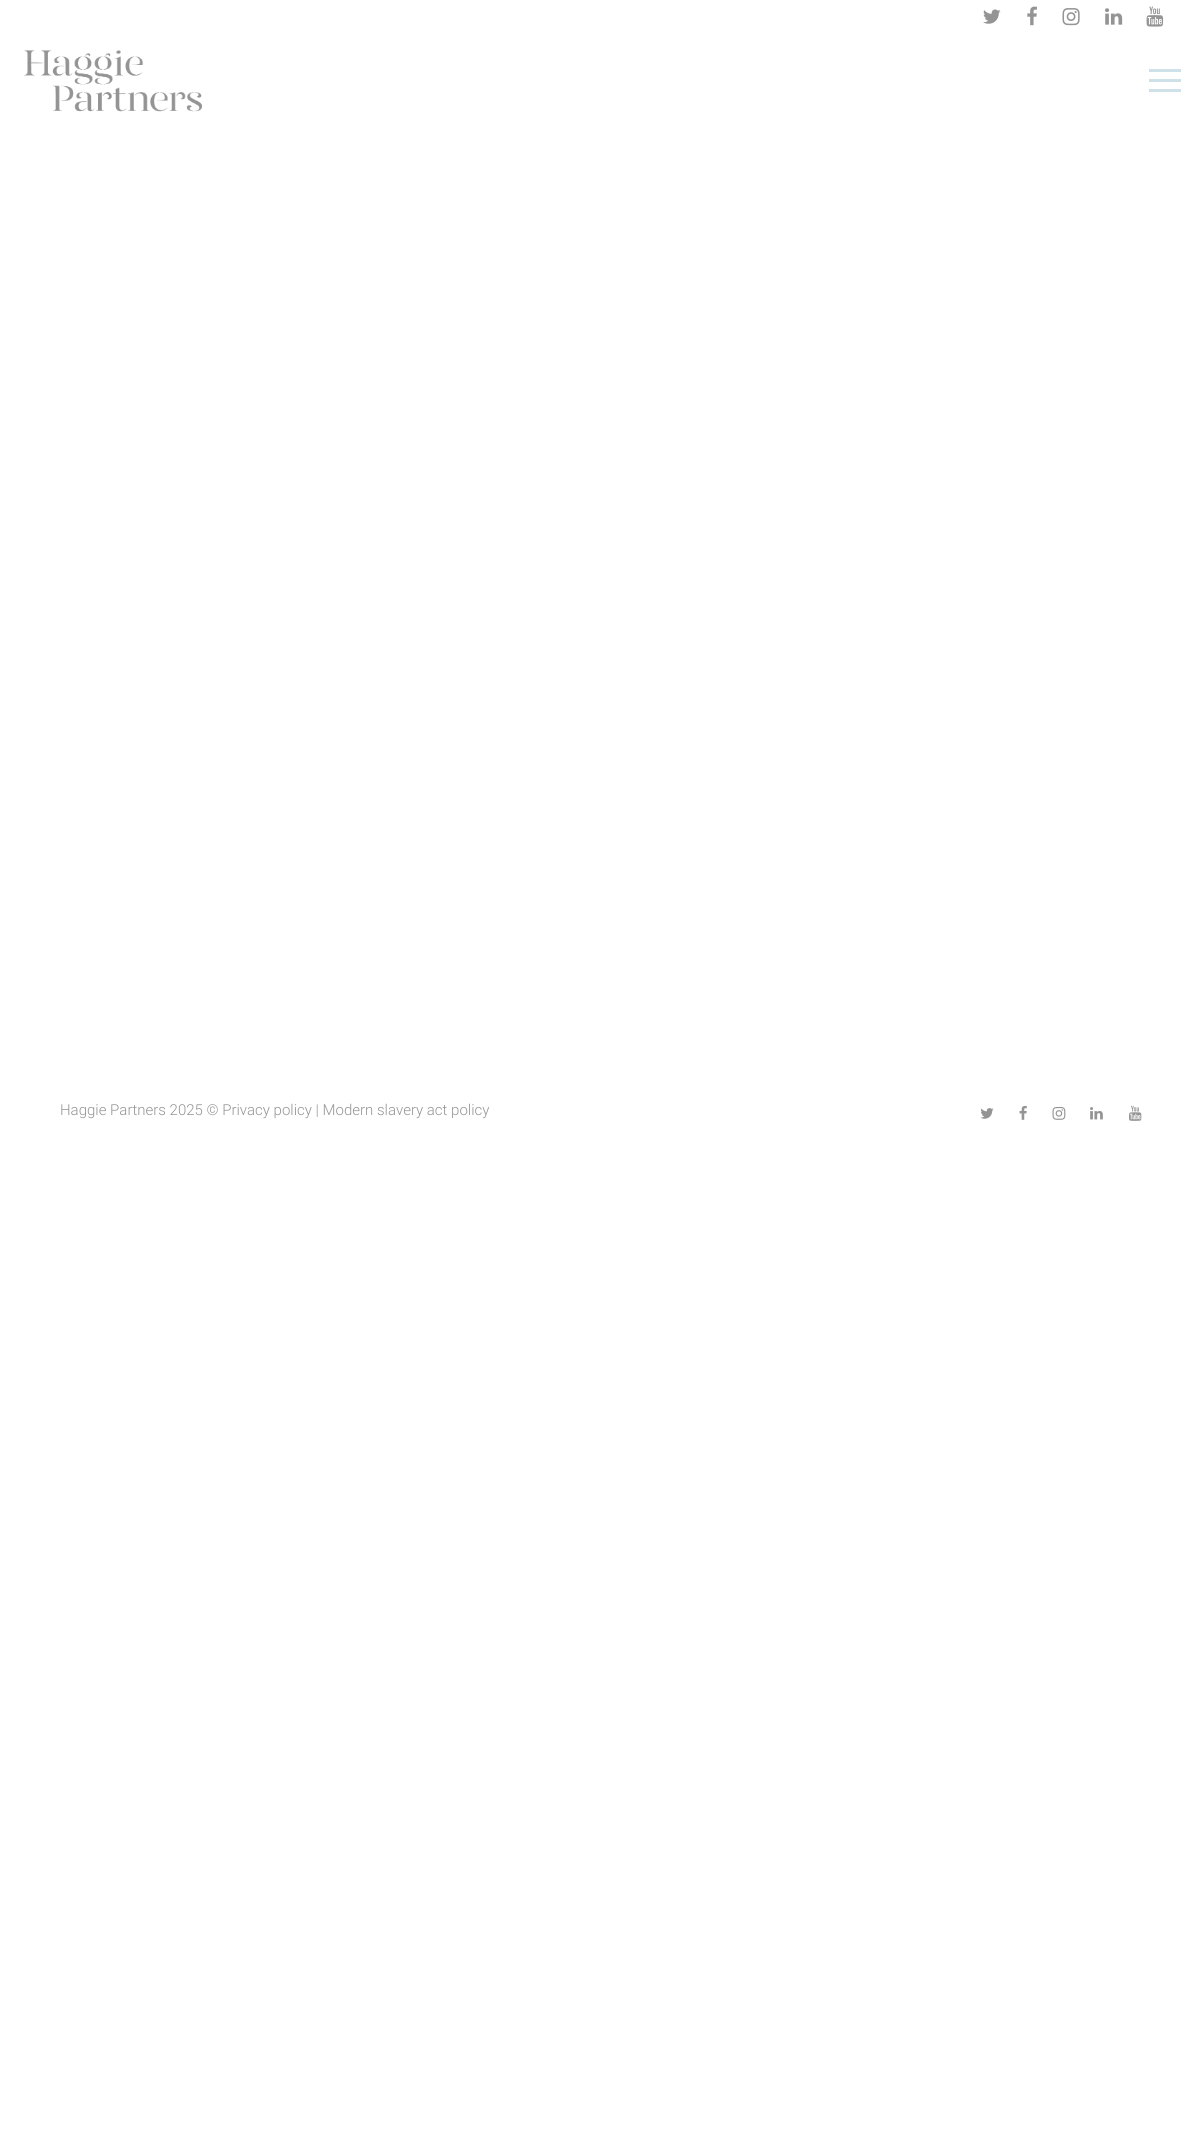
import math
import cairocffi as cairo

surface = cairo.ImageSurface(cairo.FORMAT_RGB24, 1201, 2134)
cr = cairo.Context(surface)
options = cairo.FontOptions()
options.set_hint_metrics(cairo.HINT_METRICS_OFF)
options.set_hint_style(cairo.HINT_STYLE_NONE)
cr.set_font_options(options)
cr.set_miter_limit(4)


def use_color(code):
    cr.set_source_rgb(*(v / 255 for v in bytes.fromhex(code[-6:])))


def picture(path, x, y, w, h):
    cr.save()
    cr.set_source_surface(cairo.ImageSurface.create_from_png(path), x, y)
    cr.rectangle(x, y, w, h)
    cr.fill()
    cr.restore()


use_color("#ffffff")
cr.paint()
picture("img1.png", 983, 9, 18, 15)
picture("img2.png", 1027, 6, 10, 20)
picture("img3.png", 1062, 8, 18, 18)
picture("img4.png", 1105, 8, 18, 17)
picture("img5.png", 1146, 6, 18, 21)
picture("img6.png", 24, 50, 179, 62)
use_color("#cfe1e8")
cr.rectangle(1149, 69, 32, 3)
cr.fill()
cr.rectangle(1149, 79, 32, 3)
cr.fill()
cr.rectangle(1149, 89, 32, 3)
cr.fill()
cr.select_font_face("Roboto Light")
cr.set_font_size(15)
use_color("#949494")
cr.move_to(60, 1115)
cr.show_text("Haggie Partners 2025 © Privacy policy | Modern slavery act policy")
picture("img7.png", 980, 1108, 14, 11)
picture("img8.png", 1019, 1105, 8, 15)
picture("img9.png", 1052, 1107, 14, 13)
picture("img10.png", 1090, 1107, 13, 13)
picture("img11.png", 1129, 1105, 13, 16)
surface.write_to_png("result.png")
